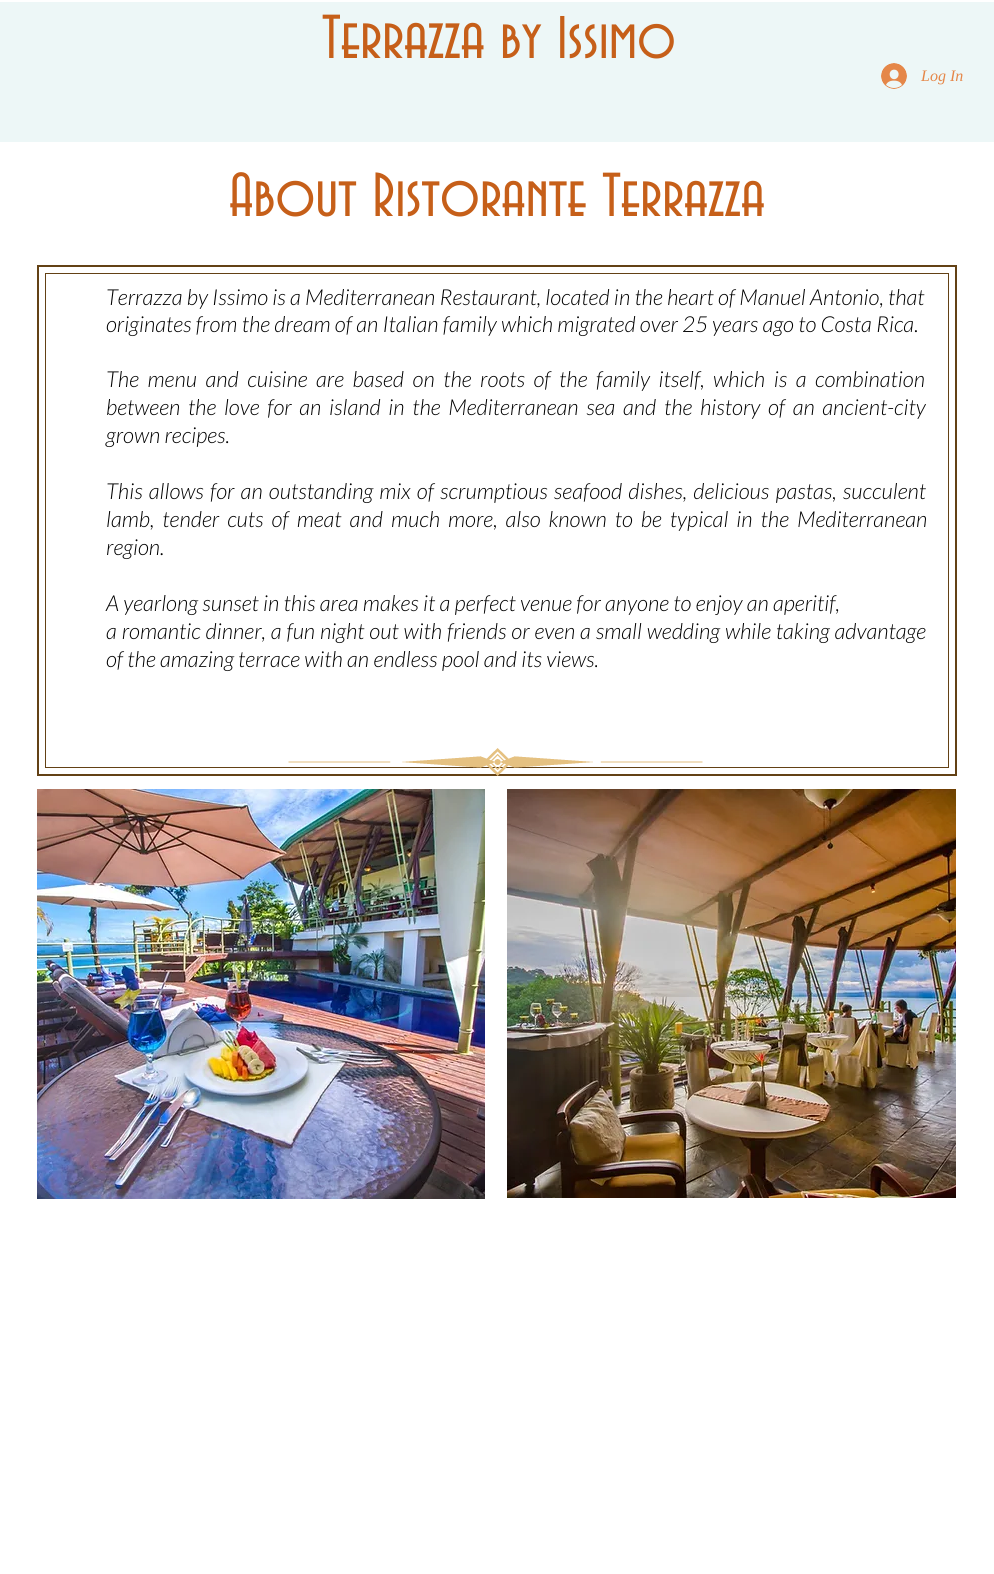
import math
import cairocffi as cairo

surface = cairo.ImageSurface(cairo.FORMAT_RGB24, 994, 1574)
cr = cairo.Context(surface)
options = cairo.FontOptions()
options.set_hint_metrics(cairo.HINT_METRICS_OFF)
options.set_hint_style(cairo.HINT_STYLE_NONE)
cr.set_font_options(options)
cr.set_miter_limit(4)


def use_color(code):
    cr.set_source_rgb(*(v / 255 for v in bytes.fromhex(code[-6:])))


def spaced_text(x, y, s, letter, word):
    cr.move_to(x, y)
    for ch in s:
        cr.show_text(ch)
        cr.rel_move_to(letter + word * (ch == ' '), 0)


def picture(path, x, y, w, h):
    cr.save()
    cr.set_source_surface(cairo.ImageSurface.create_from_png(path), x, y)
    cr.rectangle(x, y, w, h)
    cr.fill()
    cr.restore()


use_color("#ffffff")
cr.paint()
use_color("#edf7f7")
cr.rectangle(0, 2, 994, 140)
cr.fill()
cr.select_font_face("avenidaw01")
cr.set_font_size(65)
use_color("#c65f19")
cr.move_to(322, 58)
cr.show_text("Terrazza")
cr.set_font_size(63)
cr.move_to(500, 58)
cr.show_text("by Issimo")
picture("img1.png", 881, 63, 26, 26)
cr.select_font_face("Liberation Serif", cairo.FONT_SLANT_ITALIC)
cr.set_font_size(16)
use_color("#e58749")
cr.move_to(921, 81)
cr.show_text("Log In")
cr.select_font_face("avenidaw01")
cr.set_font_size(65)
use_color("#c65f19")
cr.move_to(229, 216)
cr.show_text("About Ristorante Terrazza")
cr.rectangle(38, 266, 918, 509)
use_color("#634115")
cr.stroke()
cr.rectangle(45.5, 273.5, 903, 494)
cr.set_line_width(1)
cr.stroke()
cr.select_font_face("Lato Light", cairo.FONT_SLANT_ITALIC)
cr.set_font_size(22)
use_color("#000000")
cr.move_to(106, 305)
cr.show_text("Terrazza by Issimo is a Mediterranean Restaurant, located in the heart of Manuel Antonio, that")
cr.move_to(106, 332)
cr.show_text("originates from the dream of an Italian family which migrated over 25 years ago to Costa Rica.")
spaced_text(106, 387, "The menu and cuisine are based on the roots of the family itself, which is a combination", 0, 4.25)
spaced_text(106, 415, "between the love for an island in the Mediterranean sea and the history of an ancient-city", 0, 3.4)
cr.move_to(106, 443)
cr.show_text("grown recipes.")
spaced_text(106, 499, "This allows for an outstanding mix of scrumptious seafood dishes, delicious pastas, succulent", 0, 1.9)
spaced_text(106, 527, "lamb, tender cuts of meat and much more, also known to be typical in the Mediterranean", 0, 3.75)
cr.move_to(106, 555)
cr.show_text("region.")
cr.move_to(106, 611)
cr.show_text("A yearlong sunset in this area makes it a perfect venue for anyone to enjoy an aperitif,")
spaced_text(106, 639, "a romantic dinner, a fun night out with friends or even a small wedding while taking advantage", 0, 0.6)
cr.move_to(106, 667)
cr.show_text("of the amazing terrace with an endless pool and its views.")
picture("img2.png", 288, 748, 415, 28)
picture("img3.png", 37, 789, 448, 410)
picture("img4.png", 507, 789, 449, 409)
surface.write_to_png("result.png")
